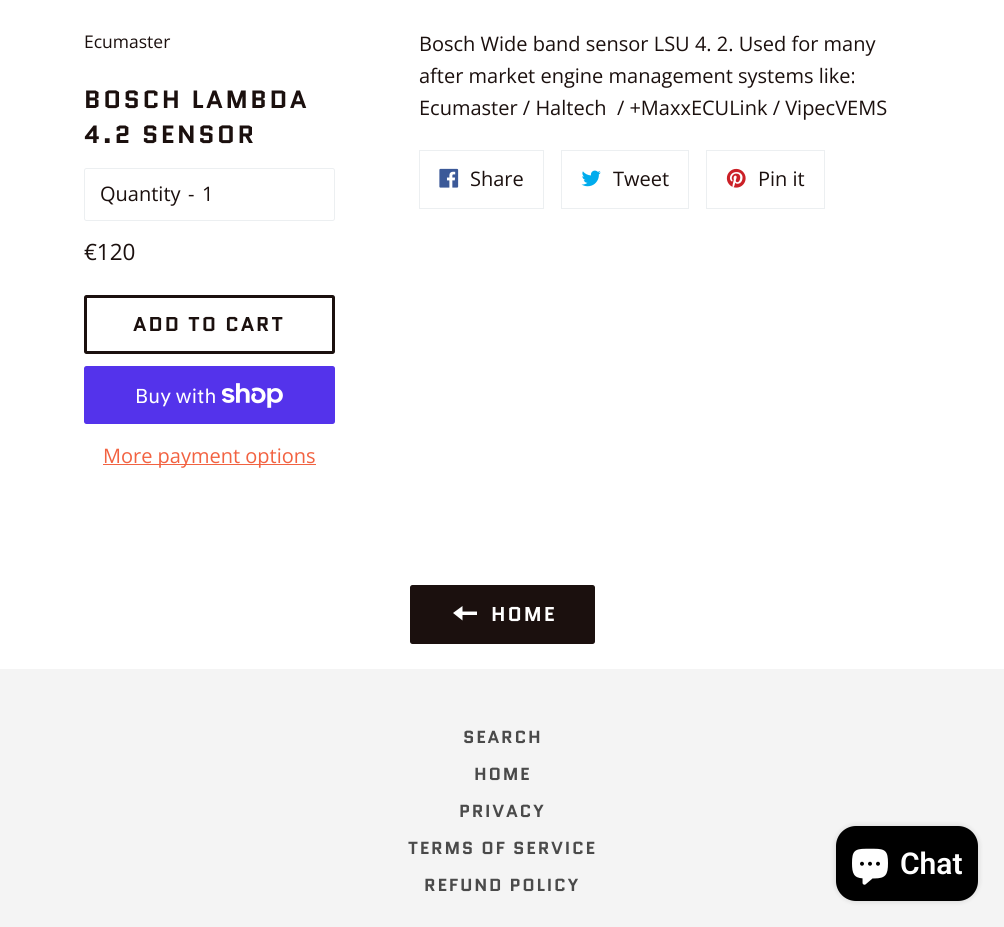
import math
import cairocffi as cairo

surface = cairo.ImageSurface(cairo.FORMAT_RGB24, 1004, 927)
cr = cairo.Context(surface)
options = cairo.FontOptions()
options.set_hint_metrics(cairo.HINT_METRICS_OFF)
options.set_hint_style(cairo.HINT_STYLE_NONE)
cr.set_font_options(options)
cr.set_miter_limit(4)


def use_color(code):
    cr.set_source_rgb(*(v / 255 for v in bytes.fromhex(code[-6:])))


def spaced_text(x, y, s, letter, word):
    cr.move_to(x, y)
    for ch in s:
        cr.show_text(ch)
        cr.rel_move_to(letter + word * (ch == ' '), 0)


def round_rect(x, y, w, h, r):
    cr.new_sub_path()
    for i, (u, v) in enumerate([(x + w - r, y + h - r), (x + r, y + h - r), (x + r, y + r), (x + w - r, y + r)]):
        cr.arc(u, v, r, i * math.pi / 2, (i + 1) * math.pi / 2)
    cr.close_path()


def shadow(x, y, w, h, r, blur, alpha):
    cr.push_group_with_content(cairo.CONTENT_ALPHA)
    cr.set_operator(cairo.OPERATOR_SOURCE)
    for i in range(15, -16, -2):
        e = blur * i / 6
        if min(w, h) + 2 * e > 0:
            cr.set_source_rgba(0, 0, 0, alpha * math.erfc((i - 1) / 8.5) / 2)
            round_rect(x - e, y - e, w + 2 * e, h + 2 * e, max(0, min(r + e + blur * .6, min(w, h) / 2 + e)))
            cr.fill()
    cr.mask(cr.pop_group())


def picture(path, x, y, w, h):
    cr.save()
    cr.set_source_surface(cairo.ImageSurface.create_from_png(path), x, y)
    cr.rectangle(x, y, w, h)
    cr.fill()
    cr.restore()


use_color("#ffffff")
cr.paint()
cr.select_font_face("Open Sans")
cr.set_font_size(17.5)
use_color("#1b100e")
cr.move_to(84, 48)
cr.show_text("Ecumaster")
cr.select_font_face("Quantico", cairo.FONT_SLANT_NORMAL, cairo.FONT_WEIGHT_BOLD)
cr.set_font_size(25)
spaced_text(84, 108, "BOSCH LAMBDA", 2.5, 0)
spaced_text(84, 143, "4.2 SENSOR", 2.5, 0)
round_rect(84.5, 168.5, 250, 52, 2)
use_color("#eceff1")
cr.set_line_width(1)
cr.stroke()
cr.select_font_face("Open Sans")
cr.set_font_size(20)
use_color("#1b100e")
cr.move_to(100, 201)
cr.show_text("Quantity")
cr.move_to(188, 201)
cr.show_text("-")
cr.move_to(202, 201)
cr.show_text("1")
cr.set_font_size(22.5)
cr.move_to(84, 260)
cr.show_text("€120")
round_rect(85.5, 296.5, 248, 56, 1)
cr.set_line_width(3)
cr.stroke()
cr.select_font_face("Quantico", cairo.FONT_SLANT_NORMAL, cairo.FONT_WEIGHT_BOLD)
cr.set_font_size(20)
spaced_text(133, 331, "ADD TO CART", 2, 0)
use_color("#5433eb")
round_rect(84, 366, 251, 58, 2.5)
cr.fill()
cr.select_font_face("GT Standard")
use_color("#ffffff")
cr.move_to(135, 403)
cr.show_text("Buy with")
picture("img1.png", 221, 383, 62, 25)
use_color("#f26241")
cr.rectangle(103, 464, 213, 1)
cr.fill()
cr.select_font_face("Open Sans")
cr.move_to(103, 463)
cr.show_text("More payment options")
use_color("#1b100e")
cr.move_to(419, 51)
cr.show_text("Bosch Wide band sensor LSU 4. 2. Used for many")
cr.move_to(419, 83)
cr.show_text("after market engine management systems like:")
cr.move_to(419, 115)
cr.show_text("Ecumaster / Haltech  / +MaxxECULink / VipecVEMS")
cr.rectangle(419.5, 150.5, 124, 58)
use_color("#eceff1")
cr.set_line_width(1)
cr.stroke()
picture("img2.png", 439, 168, 20, 20)
use_color("#1b100e")
cr.move_to(470, 186)
cr.show_text("Share")
cr.rectangle(561.5, 150.5, 127, 58)
use_color("#eceff1")
cr.stroke()
picture("img3.png", 581, 170, 20, 17)
use_color("#1b100e")
cr.move_to(613, 186)
cr.show_text("Tweet")
cr.rectangle(706.5, 150.5, 118, 58)
use_color("#eceff1")
cr.stroke()
picture("img4.png", 726, 168, 20, 20)
use_color("#1b100e")
cr.move_to(758, 186)
cr.show_text("Pin it")
round_rect(410, 585, 185, 59, 2.5)
cr.fill()
use_color("#ffffff")
cr.new_path()
cr.move_to(462.5, 611.5)
cr.line_to(462.5, 606)
cr.line_to(453, 613)
cr.line_to(462.5, 620.5)
cr.line_to(462.5, 615)
cr.line_to(477, 615)
cr.line_to(477, 611.5)
cr.close_path()
cr.fill()
cr.select_font_face("Quantico", cairo.FONT_SLANT_NORMAL, cairo.FONT_WEIGHT_BOLD)
spaced_text(491, 621, "HOME", 2, 0)
use_color("#f4f4f4")
cr.rectangle(0, 669, 1004, 258)
cr.fill()
cr.set_font_size(17.5)
use_color("#4a4a4a")
spaced_text(463, 743, "SEARCH", 1.75, 0)
spaced_text(474, 780, "HOME", 1.75, 0)
spaced_text(459, 817, "PRIVACY", 1.75, 0)
spaced_text(408, 854, "TERMS OF SERVICE", 1.75, 0)
spaced_text(424, 891, "REFUND POLICY", 1.75, 0)
use_color("#000000")
shadow(836, 826, 142, 75, 20, 3, 0.15)
use_color("#000000")
round_rect(836, 826, 142, 75, 20)
cr.fill()
picture("img5.png", 852, 848, 36, 37)
cr.select_font_face("Roboto SemiBold")
cr.set_font_size(30)
use_color("#ffffff")
cr.move_to(900, 874)
cr.show_text("Chat")
surface.write_to_png("result.png")
